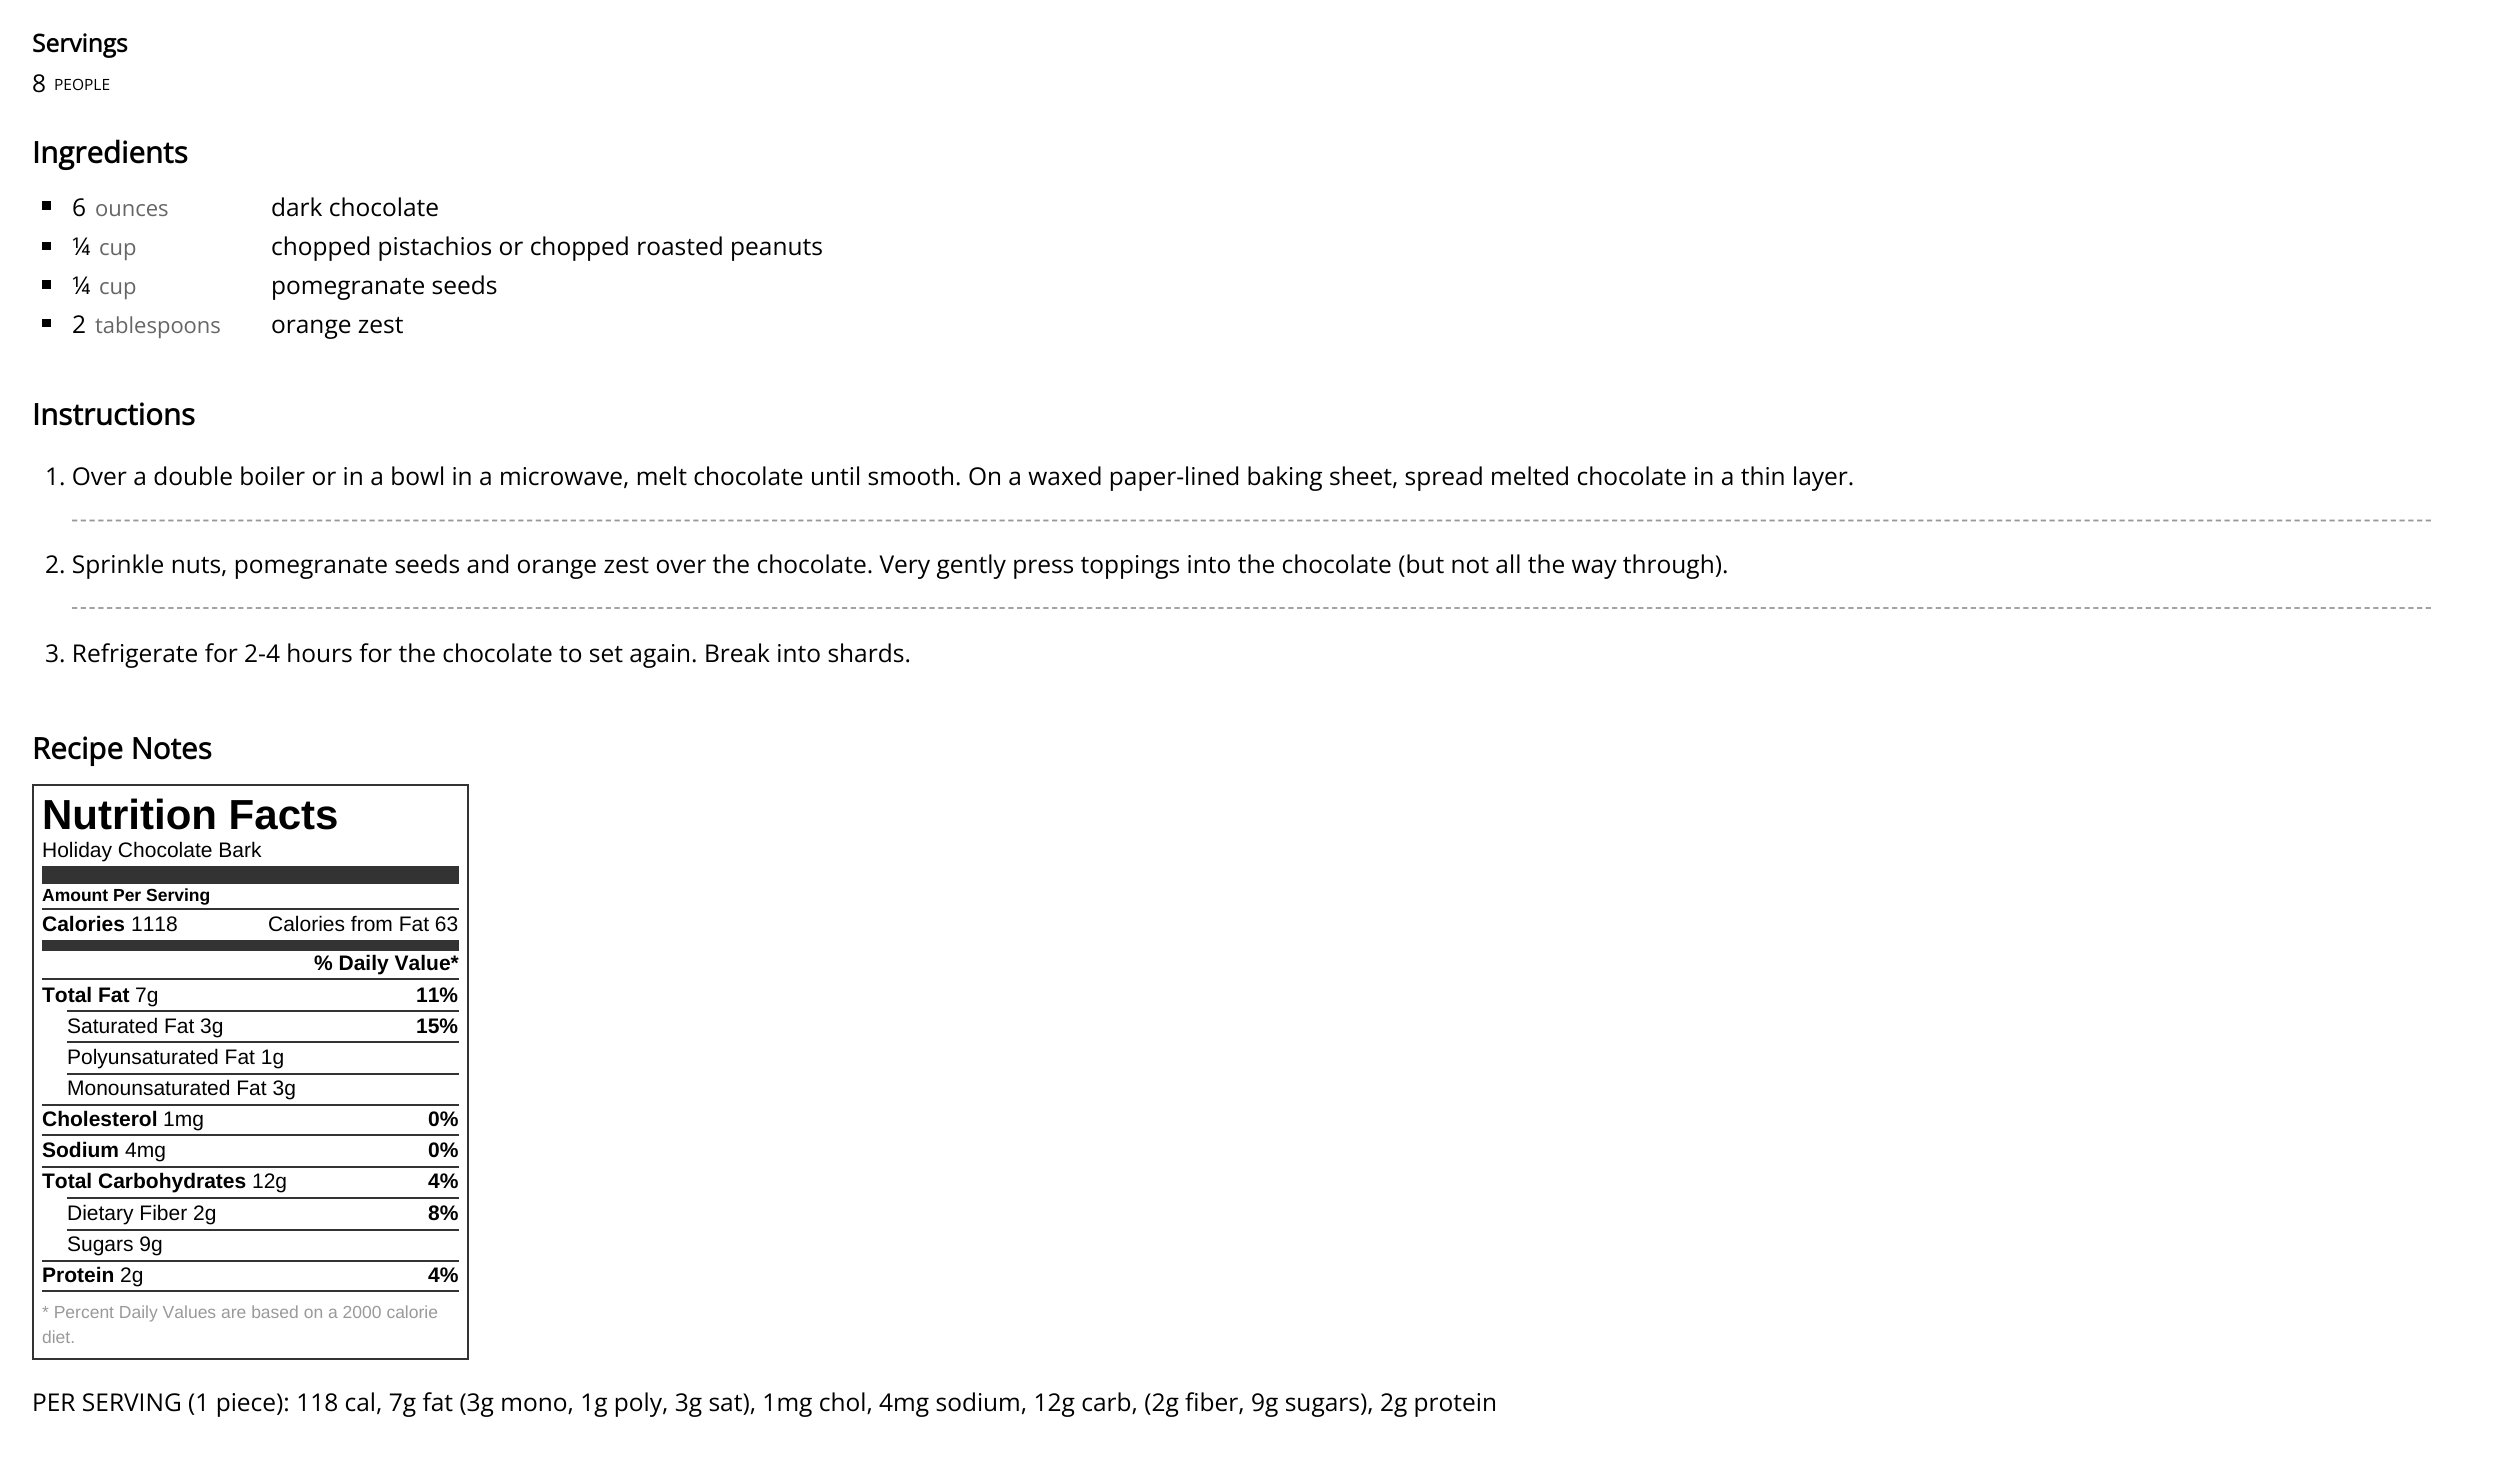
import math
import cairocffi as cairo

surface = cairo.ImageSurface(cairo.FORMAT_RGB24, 2503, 1471)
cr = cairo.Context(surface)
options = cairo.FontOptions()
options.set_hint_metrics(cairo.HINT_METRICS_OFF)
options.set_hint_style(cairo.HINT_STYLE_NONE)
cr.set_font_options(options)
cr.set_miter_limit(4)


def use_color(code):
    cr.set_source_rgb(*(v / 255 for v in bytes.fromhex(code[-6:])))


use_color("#ffffff")
cr.paint()
cr.select_font_face("Open Sans", cairo.FONT_SLANT_NORMAL, cairo.FONT_WEIGHT_BOLD)
cr.set_font_size(24.5)
use_color("#000000")
cr.move_to(32, 52)
cr.show_text("Servings")
cr.select_font_face("Open Sans")
cr.move_to(32, 92)
cr.show_text("8")
cr.set_font_size(15.5)
cr.move_to(54, 90)
cr.show_text("PEOPLE")
cr.select_font_face("Open Sans", cairo.FONT_SLANT_NORMAL, cairo.FONT_WEIGHT_BOLD)
cr.set_font_size(29.5)
cr.move_to(32, 163)
cr.show_text("Ingredients")
cr.rectangle(42, 201, 9, 9)
cr.fill()
cr.select_font_face("Open Sans")
cr.set_font_size(24.5)
cr.move_to(72, 216)
cr.show_text("6")
cr.set_font_size(22)
use_color("#666666")
cr.move_to(95, 216)
cr.show_text("ounces")
cr.set_font_size(24.5)
use_color("#000000")
cr.move_to(271, 216)
cr.show_text("dark chocolate")
cr.rectangle(42, 242, 9, 8)
cr.fill()
cr.move_to(72, 255)
cr.show_text("¼")
cr.set_font_size(22)
use_color("#666666")
cr.move_to(99, 255)
cr.show_text("cup")
cr.set_font_size(24.5)
use_color("#000000")
cr.move_to(271, 255)
cr.show_text("chopped pistachios or chopped roasted peanuts")
cr.rectangle(42, 280, 9, 9)
cr.fill()
cr.move_to(72, 294)
cr.show_text("¼")
cr.set_font_size(22)
use_color("#666666")
cr.move_to(99, 294)
cr.show_text("cup")
cr.set_font_size(24.5)
use_color("#000000")
cr.move_to(271, 294)
cr.show_text("pomegranate seeds")
cr.rectangle(42, 319, 9, 8)
cr.fill()
cr.move_to(72, 333)
cr.show_text("2")
cr.set_font_size(22)
use_color("#666666")
cr.move_to(95, 333)
cr.show_text("tablespoons")
cr.set_font_size(24.5)
use_color("#000000")
cr.move_to(271, 333)
cr.show_text("orange zest")
cr.select_font_face("Open Sans", cairo.FONT_SLANT_NORMAL, cairo.FONT_WEIGHT_BOLD)
cr.set_font_size(29.5)
cr.move_to(32, 425)
cr.show_text("Instructions")
cr.new_path()
cr.move_to(72, 520.5)
cr.line_to(2432.5, 520.5)
use_color("#999999")
cr.set_line_width(1.8)
cr.set_dash([5.25, 3.5])
cr.stroke()
cr.select_font_face("Open Sans")
cr.set_font_size(24.5)
use_color("#000000")
cr.move_to(45, 485)
cr.show_text("1. Over a double boiler or in a bowl in a microwave, melt chocolate until smooth. On a waxed paper-lined baking sheet, spread melted chocolate in a thin layer.")
cr.new_path()
cr.move_to(72, 608)
cr.line_to(2432.5, 608)
use_color("#999999")
cr.stroke()
use_color("#000000")
cr.move_to(45, 573)
cr.show_text("2. Sprinkle nuts, pomegranate seeds and orange zest over the chocolate. Very gently press toppings into the chocolate (but not all the way through).")
cr.move_to(45, 662)
cr.show_text("3. Refrigerate for 2-4 hours for the chocolate to set again. Break into shards.")
cr.select_font_face("Open Sans", cairo.FONT_SLANT_NORMAL, cairo.FONT_WEIGHT_BOLD)
cr.set_font_size(29.5)
cr.move_to(32, 759)
cr.show_text("Recipe Notes")
cr.rectangle(33, 785, 435, 574)
use_color("#333333")
cr.set_line_width(2)
cr.set_dash([])
cr.stroke()
cr.select_font_face("Liberation Sans", cairo.FONT_SLANT_NORMAL, cairo.FONT_WEIGHT_BOLD)
cr.set_font_size(42)
use_color("#000000")
cr.move_to(42, 829)
cr.show_text("Nutrition Facts")
cr.select_font_face("Liberation Sans")
cr.set_font_size(21)
cr.move_to(42, 857)
cr.show_text("Holiday Chocolate Bark")
use_color("#333333")
cr.rectangle(42, 866, 417, 18)
cr.fill()
cr.select_font_face("Liberation Sans", cairo.FONT_SLANT_NORMAL, cairo.FONT_WEIGHT_BOLD)
cr.set_font_size(17.5)
use_color("#000000")
cr.move_to(42, 901)
cr.show_text("Amount Per Serving")
use_color("#333333")
cr.rectangle(42, 908, 417, 2)
cr.fill()
cr.set_font_size(21)
use_color("#000000")
cr.move_to(42, 931)
cr.show_text("Calories")
cr.select_font_face("Liberation Sans")
cr.move_to(131, 931)
cr.show_text("1118")
cr.move_to(268, 931)
cr.show_text("Calories from Fat 63")
use_color("#333333")
cr.rectangle(42, 940, 417, 11)
cr.fill()
cr.select_font_face("Liberation Sans", cairo.FONT_SLANT_NORMAL, cairo.FONT_WEIGHT_BOLD)
use_color("#000000")
cr.move_to(314, 970)
cr.show_text("% Daily Value*")
use_color("#333333")
cr.rectangle(42, 978, 417, 2)
cr.fill()
use_color("#000000")
cr.move_to(42, 1002)
cr.show_text("Total Fat")
cr.select_font_face("Liberation Sans")
cr.move_to(135, 1002)
cr.show_text("7g")
cr.select_font_face("Liberation Sans", cairo.FONT_SLANT_NORMAL, cairo.FONT_WEIGHT_BOLD)
cr.move_to(416, 1002)
cr.show_text("11%")
use_color("#333333")
cr.rectangle(67, 1010, 392, 2)
cr.fill()
cr.select_font_face("Liberation Sans")
use_color("#000000")
cr.move_to(67, 1033)
cr.show_text("Saturated Fat 3g")
cr.select_font_face("Liberation Sans", cairo.FONT_SLANT_NORMAL, cairo.FONT_WEIGHT_BOLD)
cr.move_to(416, 1033)
cr.show_text("15%")
use_color("#333333")
cr.rectangle(67, 1041, 392, 2)
cr.fill()
cr.select_font_face("Liberation Sans")
use_color("#000000")
cr.move_to(67, 1064)
cr.show_text("Polyunsaturated Fat 1g")
use_color("#333333")
cr.rectangle(67, 1073, 392, 2)
cr.fill()
use_color("#000000")
cr.move_to(67, 1095)
cr.show_text("Monounsaturated Fat 3g")
use_color("#333333")
cr.rectangle(42, 1104, 417, 2)
cr.fill()
cr.select_font_face("Liberation Sans", cairo.FONT_SLANT_NORMAL, cairo.FONT_WEIGHT_BOLD)
use_color("#000000")
cr.move_to(42, 1126)
cr.show_text("Cholesterol")
cr.select_font_face("Liberation Sans")
cr.move_to(163, 1126)
cr.show_text("1mg")
cr.select_font_face("Liberation Sans", cairo.FONT_SLANT_NORMAL, cairo.FONT_WEIGHT_BOLD)
cr.move_to(428, 1126)
cr.show_text("0%")
use_color("#333333")
cr.rectangle(42, 1134, 417, 2)
cr.fill()
use_color("#000000")
cr.move_to(42, 1157)
cr.show_text("Sodium")
cr.select_font_face("Liberation Sans")
cr.move_to(125, 1157)
cr.show_text("4mg")
cr.select_font_face("Liberation Sans", cairo.FONT_SLANT_NORMAL, cairo.FONT_WEIGHT_BOLD)
cr.move_to(428, 1157)
cr.show_text("0%")
use_color("#333333")
cr.rectangle(42, 1166, 417, 2)
cr.fill()
use_color("#000000")
cr.move_to(42, 1188)
cr.show_text("Total Carbohydrates")
cr.select_font_face("Liberation Sans")
cr.move_to(252, 1188)
cr.show_text("12g")
cr.select_font_face("Liberation Sans", cairo.FONT_SLANT_NORMAL, cairo.FONT_WEIGHT_BOLD)
cr.move_to(428, 1188)
cr.show_text("4%")
use_color("#333333")
cr.rectangle(67, 1197, 392, 2)
cr.fill()
cr.select_font_face("Liberation Sans")
use_color("#000000")
cr.move_to(67, 1220)
cr.show_text("Dietary Fiber 2g")
cr.select_font_face("Liberation Sans", cairo.FONT_SLANT_NORMAL, cairo.FONT_WEIGHT_BOLD)
cr.move_to(428, 1220)
cr.show_text("8%")
use_color("#333333")
cr.rectangle(67, 1229, 392, 2)
cr.fill()
cr.select_font_face("Liberation Sans")
use_color("#000000")
cr.move_to(67, 1251)
cr.show_text("Sugars 9g")
use_color("#333333")
cr.rectangle(42, 1260, 417, 2)
cr.fill()
cr.select_font_face("Liberation Sans", cairo.FONT_SLANT_NORMAL, cairo.FONT_WEIGHT_BOLD)
use_color("#000000")
cr.move_to(42, 1282)
cr.show_text("Protein")
cr.select_font_face("Liberation Sans")
cr.move_to(120, 1282)
cr.show_text("2g")
cr.select_font_face("Liberation Sans", cairo.FONT_SLANT_NORMAL, cairo.FONT_WEIGHT_BOLD)
cr.move_to(428, 1282)
cr.show_text("4%")
use_color("#333333")
cr.rectangle(42, 1290, 417, 2)
cr.fill()
cr.select_font_face("Liberation Sans")
cr.set_font_size(17.5)
use_color("#999999")
cr.move_to(42, 1318)
cr.show_text("* Percent Daily Values are based on a 2000 calorie")
cr.move_to(42, 1343)
cr.show_text("diet.")
cr.select_font_face("Open Sans")
cr.set_font_size(24.5)
use_color("#000000")
cr.move_to(32, 1411)
cr.show_text("PER SERVING (1 piece): 118 cal, 7g fat (3g mono, 1g poly, 3g sat), 1mg chol, 4mg sodium, 12g carb, (2g fiber, 9g sugars), 2g protein")
surface.write_to_png("result.png")
